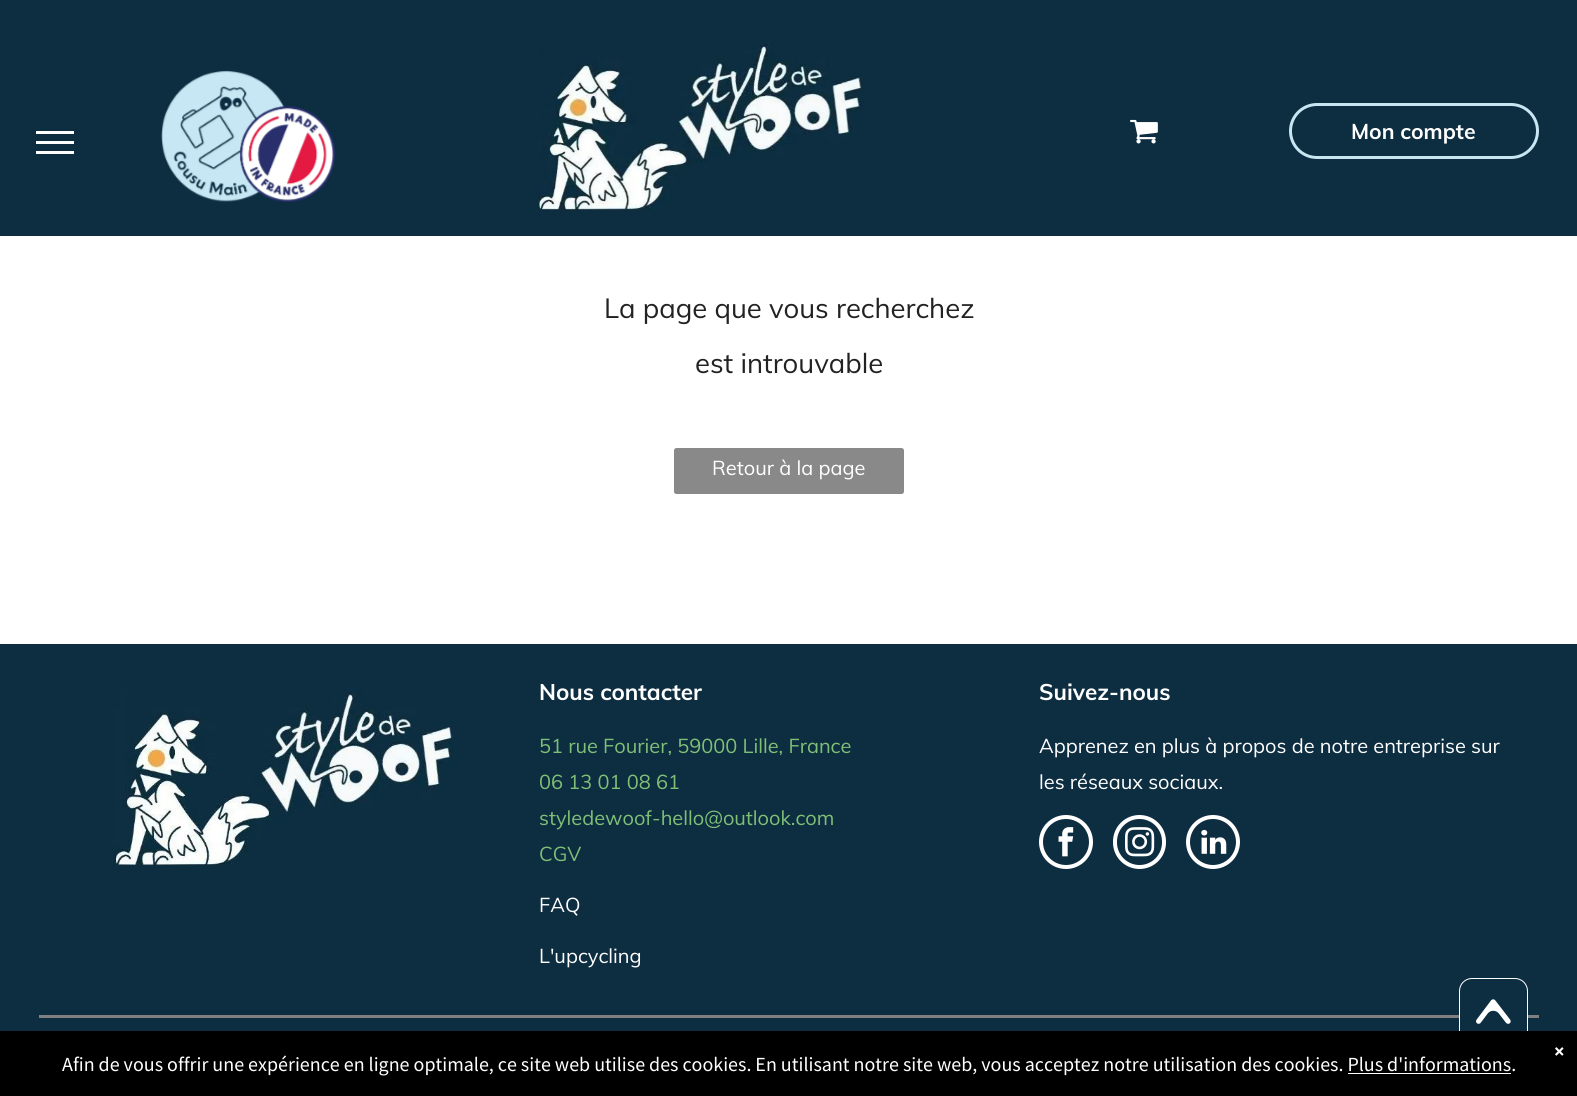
import math
import cairocffi as cairo

surface = cairo.ImageSurface(cairo.FORMAT_RGB24, 1577, 1096)
cr = cairo.Context(surface)
options = cairo.FontOptions()
options.set_hint_metrics(cairo.HINT_METRICS_OFF)
options.set_hint_style(cairo.HINT_STYLE_NONE)
cr.set_font_options(options)
cr.set_miter_limit(4)


def use_color(code):
    cr.set_source_rgb(*(v / 255 for v in bytes.fromhex(code[-6:])))


def round_rect(x, y, w, h, r):
    cr.new_sub_path()
    for i, (u, v) in enumerate([(x + w - r, y + h - r), (x + r, y + h - r), (x + r, y + r), (x + w - r, y + r)]):
        cr.arc(u, v, r, i * math.pi / 2, (i + 1) * math.pi / 2)
    cr.close_path()


def picture(path, x, y, w, h):
    cr.save()
    cr.set_source_surface(cairo.ImageSurface.create_from_png(path), x, y)
    cr.rectangle(x, y, w, h)
    cr.fill()
    cr.restore()


use_color("#ffffff")
cr.paint()
use_color("#0d2d41")
cr.rectangle(0, 0, 1577, 236)
cr.fill()
use_color("#ffffff")
cr.rectangle(36, 131, 38, 3)
cr.fill()
cr.rectangle(36, 141, 38, 3)
cr.fill()
cr.rectangle(36, 151, 38, 3)
cr.fill()
picture("img1.png", 161, 70, 175, 133)
picture("img2.png", 538, 43, 325, 168)
picture("img3.png", 1130, 119, 28, 25)
round_rect(1290.5, 104.5, 247, 53, 26.5)
use_color("#c7e6f2")
cr.set_line_width(3)
cr.stroke()
cr.select_font_face("Muli", cairo.FONT_SLANT_NORMAL, cairo.FONT_WEIGHT_BOLD)
cr.set_font_size(21.25)
use_color("#ffffff")
cr.move_to(1351, 139)
cr.show_text("Mon compte")
cr.select_font_face("Muli")
cr.set_font_size(27.5)
use_color("#222222")
cr.move_to(604, 318)
cr.show_text("La page que vous recherchez")
cr.move_to(695, 373)
cr.show_text("est introuvable")
use_color("#898989")
round_rect(674, 448, 230, 46, 2.5)
cr.fill()
cr.set_font_size(20)
use_color("#ffffff")
cr.move_to(712, 475)
cr.show_text("Retour à la page")
use_color("#0d2d41")
cr.rectangle(0, 644, 1577, 387)
cr.fill()
picture("img4.png", 114, 686, 339, 179)
cr.select_font_face("Muli", cairo.FONT_SLANT_NORMAL, cairo.FONT_WEIGHT_BOLD)
cr.set_font_size(22.5)
use_color("#ffffff")
cr.move_to(539, 700)
cr.show_text("Nous contacter")
cr.select_font_face("Muli")
cr.set_font_size(20)
use_color("#7fbf76")
cr.move_to(539, 753)
cr.show_text("51 rue Fourier, 59000 Lille, France")
cr.move_to(539, 789)
cr.show_text("06 13 01 08 61")
cr.move_to(539, 825)
cr.show_text("styledewoof-hello@outlook.com")
cr.move_to(539, 861)
cr.show_text("CGV")
use_color("#ffffff")
cr.move_to(539, 912)
cr.show_text("FAQ")
cr.move_to(539, 963)
cr.show_text("L'upcycling")
cr.select_font_face("Muli", cairo.FONT_SLANT_NORMAL, cairo.FONT_WEIGHT_BOLD)
cr.set_font_size(22.5)
cr.move_to(1039, 700)
cr.show_text("Suivez-nous")
cr.select_font_face("Muli")
cr.set_font_size(20)
cr.move_to(1039, 753)
cr.show_text("Apprenez en plus à propos de notre entreprise sur")
cr.move_to(1039, 789)
cr.show_text("les réseaux sociaux.")
cr.new_path()
cr.arc(1066, 842, 25, 0, 2 * math.pi)
cr.set_line_width(4)
cr.stroke()
picture("img5.png", 1058, 827, 16, 30)
round_rect(1115, 817, 49, 50, 24.5)
cr.stroke()
picture("img6.png", 1125, 827, 30, 30)
cr.arc(1213, 842, 25, 0, 2 * math.pi)
cr.stroke()
picture("img7.png", 1201, 829, 26, 25)
use_color("#808080")
cr.rectangle(39, 1015, 1500, 3)
cr.fill()
use_color("#0d2d41")
round_rect(1459.5, 978.5, 68, 67, 12.5)
cr.fill_preserve()
use_color("#ffffff")
cr.set_line_width(1)
cr.stroke()
picture("img8.png", 1476, 999, 35, 25)
use_color("#000000")
cr.rectangle(0, 1031, 1577, 65)
cr.fill()
cr.select_font_face("Source Sans Pro", cairo.FONT_SLANT_NORMAL, cairo.FONT_WEIGHT_BOLD)
use_color("#ffffff")
cr.move_to(1554, 1058)
cr.show_text("×")
cr.select_font_face("Source Sans Pro")
cr.move_to(62, 1071)
cr.show_text("Afin de vous offrir une expérience en ligne optimale, ce site web utilise des cookies. En utilisant notre site web, vous acceptez notre utilisation des cookies. Plus d'informations.")
cr.rectangle(1348, 1073, 163, 1)
cr.fill()
surface.write_to_png("result.png")
